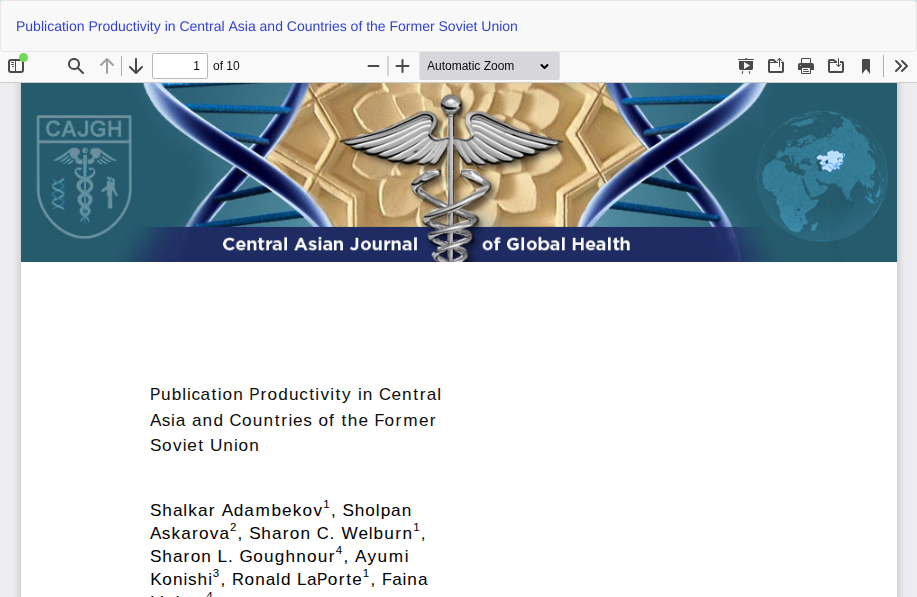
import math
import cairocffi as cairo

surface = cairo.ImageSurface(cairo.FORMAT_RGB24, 917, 597)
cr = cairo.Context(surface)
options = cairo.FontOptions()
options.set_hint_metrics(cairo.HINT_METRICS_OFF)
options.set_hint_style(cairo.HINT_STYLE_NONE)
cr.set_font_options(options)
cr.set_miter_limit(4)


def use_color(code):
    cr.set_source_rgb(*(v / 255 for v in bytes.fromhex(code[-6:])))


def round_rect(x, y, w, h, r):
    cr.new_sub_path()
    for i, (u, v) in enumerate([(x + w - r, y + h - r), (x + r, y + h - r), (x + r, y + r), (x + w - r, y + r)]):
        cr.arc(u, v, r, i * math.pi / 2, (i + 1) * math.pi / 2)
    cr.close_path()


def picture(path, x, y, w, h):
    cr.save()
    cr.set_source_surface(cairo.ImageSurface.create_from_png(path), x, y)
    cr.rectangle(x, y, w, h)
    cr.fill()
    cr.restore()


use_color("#cae7f2")
cr.paint()
picture("img1.png", 0, 50, 917, 547)
use_color("#f8f8f8")
round_rect(0.5, 0.5, 916, 51, 3.5)
cr.fill_preserve()
use_color("#e7e7e7")
cr.set_line_width(1)
cr.stroke()
cr.select_font_face("Liberation Sans")
cr.set_font_size(14)
use_color("#3142cc")
cr.move_to(16, 31)
cr.show_text("Publication Productivity in Central Asia and Countries of the Former Soviet Union")
surface.write_to_png("result.png")
